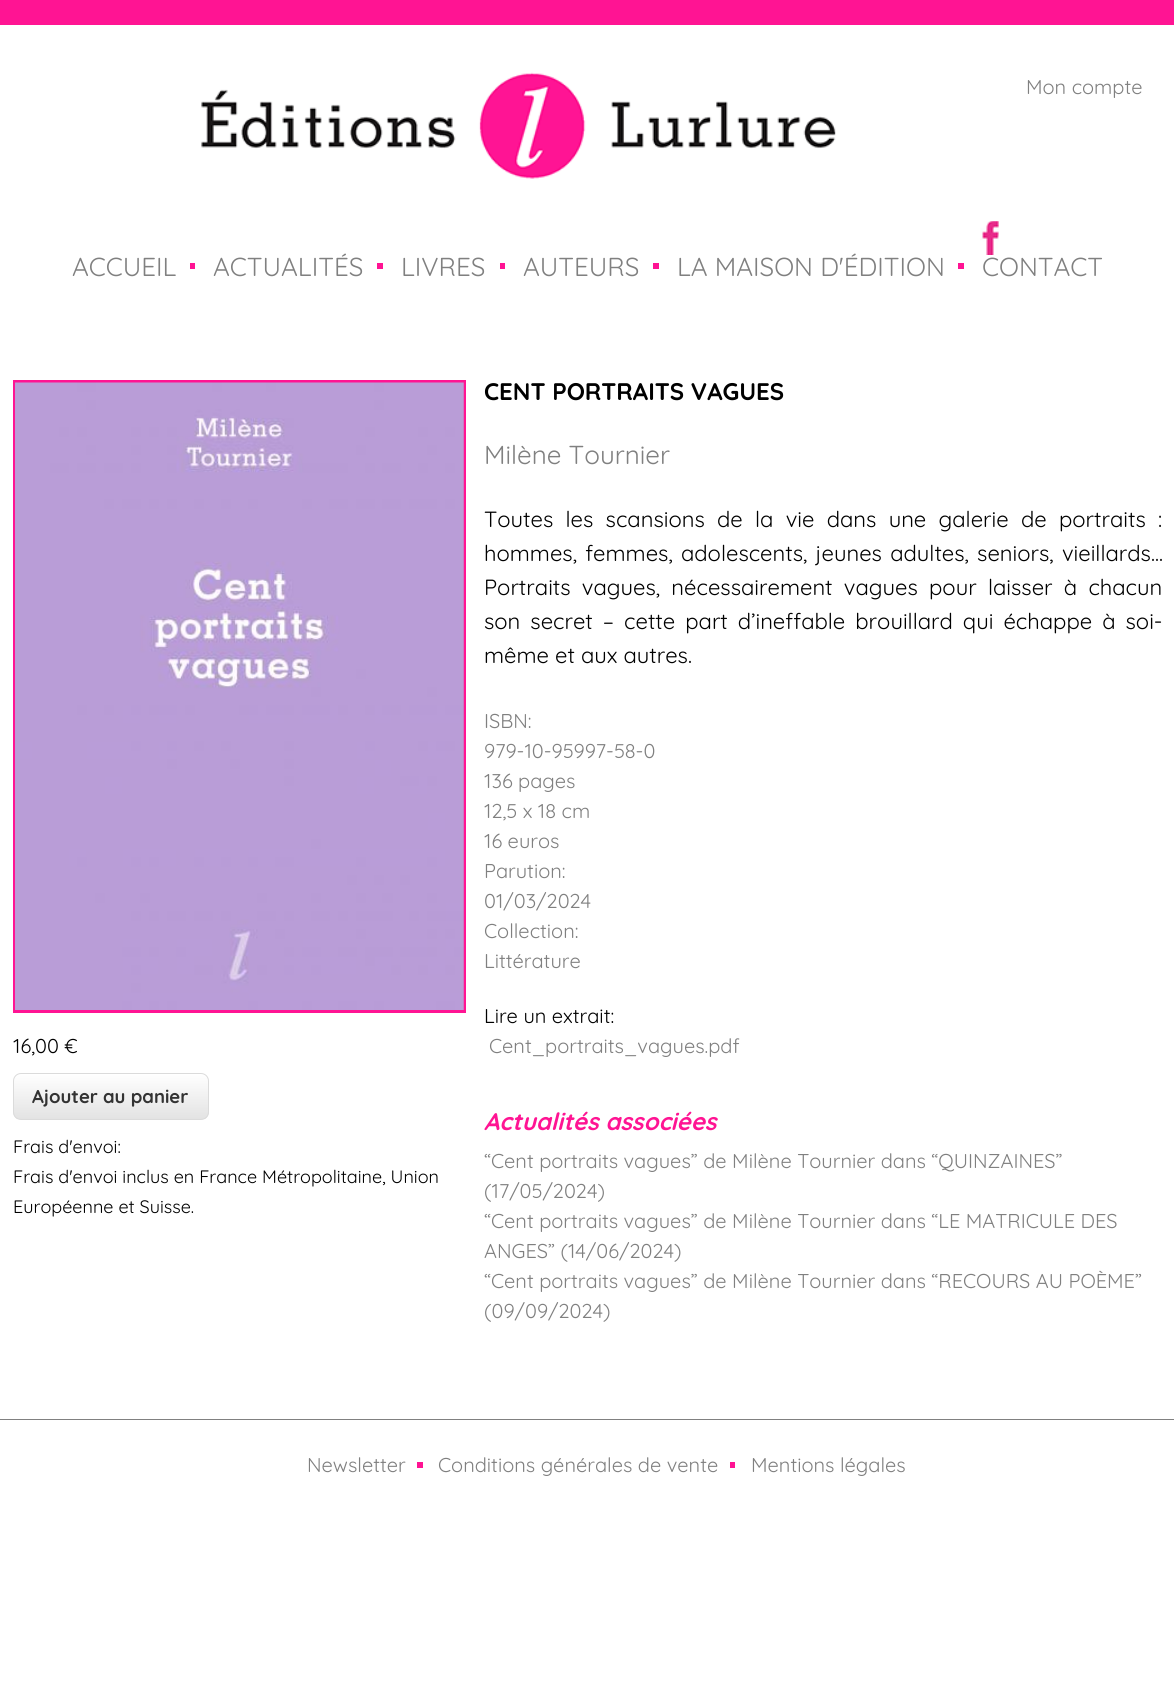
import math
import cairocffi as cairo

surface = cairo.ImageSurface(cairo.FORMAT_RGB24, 1174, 1690)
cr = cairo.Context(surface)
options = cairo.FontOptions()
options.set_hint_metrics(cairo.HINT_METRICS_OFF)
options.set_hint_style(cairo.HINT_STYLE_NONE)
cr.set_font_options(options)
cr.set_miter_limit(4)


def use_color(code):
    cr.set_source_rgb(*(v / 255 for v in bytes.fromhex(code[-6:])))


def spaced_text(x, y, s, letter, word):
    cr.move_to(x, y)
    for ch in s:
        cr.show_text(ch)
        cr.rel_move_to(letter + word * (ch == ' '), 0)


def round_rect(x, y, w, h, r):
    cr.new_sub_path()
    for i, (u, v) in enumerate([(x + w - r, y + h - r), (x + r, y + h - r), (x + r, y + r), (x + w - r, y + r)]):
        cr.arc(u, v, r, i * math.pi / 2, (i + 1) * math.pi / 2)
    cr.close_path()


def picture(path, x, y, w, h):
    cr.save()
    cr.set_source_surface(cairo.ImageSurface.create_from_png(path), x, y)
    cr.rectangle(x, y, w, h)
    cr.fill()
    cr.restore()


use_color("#ffffff")
cr.paint()
use_color("#ff1493")
cr.rectangle(0, 0, 1174, 25)
cr.fill()
picture("img1.png", 201, 72, 635, 107)
cr.select_font_face("Quicksand")
cr.set_font_size(20)
use_color("#808080")
cr.move_to(1026, 94)
cr.show_text("Mon compte")
picture("img2.png", 980, 221, 19, 34)
use_color("#ff1393")
cr.rectangle(190, 263, 5, 6)
cr.fill()
cr.set_font_size(26)
use_color("#808080")
cr.move_to(72, 276)
cr.show_text("ACCUEIL")
use_color("#ff1393")
cr.rectangle(377, 263, 6, 6)
cr.fill()
use_color("#808080")
cr.move_to(213, 276)
cr.show_text("ACTUALITÉS")
use_color("#ff1393")
cr.rectangle(500, 263, 5, 6)
cr.fill()
use_color("#808080")
cr.move_to(401, 276)
cr.show_text("LIVRES")
use_color("#ff1393")
cr.rectangle(653, 263, 6, 6)
cr.fill()
use_color("#808080")
cr.move_to(523, 276)
cr.show_text("AUTEURS")
use_color("#ff1393")
cr.rectangle(958, 263, 6, 6)
cr.fill()
use_color("#808080")
cr.move_to(677, 276)
cr.show_text("LA MAISON D'ÉDITION")
cr.move_to(982, 276)
cr.show_text("CONTACT")
cr.rectangle(14.5, 381.5, 450, 630)
use_color("#ff1493")
cr.set_line_width(3)
cr.stroke()
picture("img3.png", 15, 382, 449, 628)
cr.set_font_size(20)
use_color("#000000")
cr.move_to(13, 1053)
cr.show_text("16,00 €")
cr.save()
round_rect(13, 1073, 196, 47, 8)
cr.clip()
gradient = cairo.LinearGradient(111, 1074, 111, 1119)
gradient.add_color_stop_rgba(0, 1, 1, 1, 1)
gradient.add_color_stop_rgba(1, 0.89, 0.89, 0.89, 1)
cr.set_source(gradient)
cr.rectangle(13, 1074, 196, 45)
cr.fill()
cr.restore()
round_rect(13.5, 1073.5, 195, 46, 7.5)
use_color("#dbdbdb")
cr.set_line_width(1)
cr.stroke()
cr.select_font_face("Quicksand", cairo.FONT_SLANT_NORMAL, cairo.FONT_WEIGHT_BOLD)
cr.set_font_size(18.5)
use_color("#333333")
cr.move_to(32, 1103)
cr.show_text("Ajouter au panier")
cr.select_font_face("Quicksand")
cr.set_font_size(18)
use_color("#000000")
cr.move_to(13, 1153)
cr.show_text("Frais d'envoi:")
cr.move_to(13, 1183)
cr.show_text("Frais d'envoi inclus en France Métropolitaine, Union")
cr.move_to(13, 1213)
cr.show_text("Européenne et Suisse.")
cr.select_font_face("Quicksand", cairo.FONT_SLANT_NORMAL, cairo.FONT_WEIGHT_BOLD)
cr.set_font_size(24)
cr.move_to(484, 400)
cr.show_text("CENT PORTRAITS VAGUES")
cr.select_font_face("Quicksand")
cr.set_font_size(26)
use_color("#808080")
cr.move_to(484, 464)
cr.show_text("Milène Tournier")
cr.set_font_size(22)
use_color("#000000")
spaced_text(484, 527, "Toutes les scansions de la vie dans une galerie de portraits :", 0, 6.25)
spaced_text(484, 561, "hommes, femmes, adolescents, jeunes adultes, seniors, vieillards...", 0, 2.25)
spaced_text(484, 595, "Portraits vagues, nécessairement vagues pour laisser à chacun", 0, 5.25)
spaced_text(484, 629, "son secret – cette part d’ineffable brouillard qui échappe à soi-", 0, 4)
cr.move_to(484, 663)
cr.show_text("même et aux autres.")
cr.set_font_size(20)
use_color("#808080")
cr.move_to(484, 728)
cr.show_text("ISBN:")
cr.move_to(484, 758)
cr.show_text("979-10-95997-58-0")
cr.move_to(484, 788)
cr.show_text("136 pages")
cr.move_to(484, 818)
cr.show_text("12,5 x 18 cm")
cr.move_to(484, 848)
cr.show_text("16 euros")
cr.move_to(484, 878)
cr.show_text("Parution:")
cr.move_to(484, 908)
cr.show_text("01/03/2024")
cr.move_to(484, 938)
cr.show_text("Collection:")
cr.move_to(484, 968)
cr.show_text("Littérature")
use_color("#000000")
cr.move_to(484, 1023)
cr.show_text("Lire un extrait:")
use_color("#808080")
cr.move_to(489, 1053)
cr.show_text("Cent_portraits_vagues.pdf")
cr.select_font_face("Quicksand", cairo.FONT_SLANT_ITALIC, cairo.FONT_WEIGHT_BOLD)
cr.set_font_size(24)
use_color("#ff1493")
cr.move_to(484, 1130)
cr.show_text("Actualités associées")
cr.select_font_face("Quicksand")
cr.set_font_size(20)
use_color("#808080")
cr.move_to(484, 1168)
cr.show_text("“Cent portraits vagues” de Milène Tournier dans “QUINZAINES”")
cr.move_to(484, 1198)
cr.show_text("(17/05/2024)")
cr.move_to(484, 1228)
cr.show_text("“Cent portraits vagues” de Milène Tournier dans “LE MATRICULE DES")
cr.move_to(484, 1258)
cr.show_text("ANGES” (14/06/2024)")
cr.move_to(484, 1288)
cr.show_text("“Cent portraits vagues” de Milène Tournier dans “RECOURS AU POÈME”")
cr.move_to(484, 1318)
cr.show_text("(09/09/2024)")
cr.rectangle(0, 1419, 1174, 1)
cr.fill()
use_color("#ff1393")
cr.rectangle(417, 1462, 6, 6)
cr.fill()
use_color("#808080")
cr.move_to(307, 1472)
cr.show_text("Newsletter")
use_color("#ff1393")
cr.rectangle(730, 1462, 5, 6)
cr.fill()
use_color("#808080")
cr.move_to(438, 1472)
cr.show_text("Conditions générales de vente")
cr.move_to(751, 1472)
cr.show_text("Mentions légales")
surface.write_to_png("result.png")
